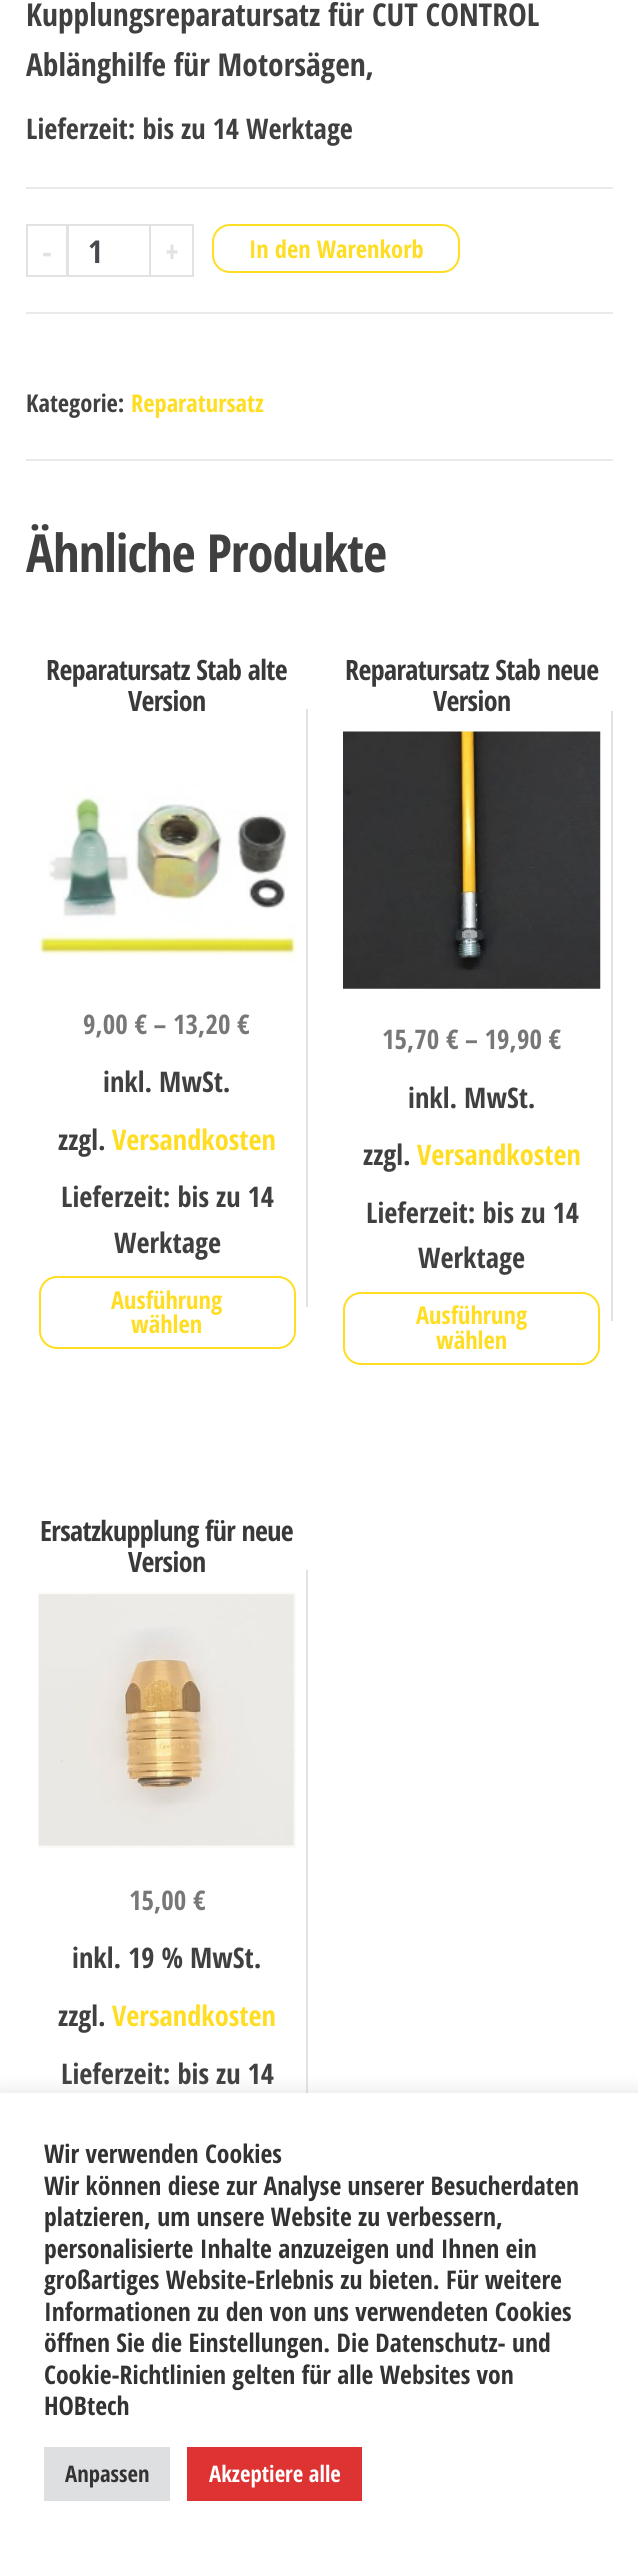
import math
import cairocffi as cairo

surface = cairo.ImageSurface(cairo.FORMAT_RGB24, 638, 2553)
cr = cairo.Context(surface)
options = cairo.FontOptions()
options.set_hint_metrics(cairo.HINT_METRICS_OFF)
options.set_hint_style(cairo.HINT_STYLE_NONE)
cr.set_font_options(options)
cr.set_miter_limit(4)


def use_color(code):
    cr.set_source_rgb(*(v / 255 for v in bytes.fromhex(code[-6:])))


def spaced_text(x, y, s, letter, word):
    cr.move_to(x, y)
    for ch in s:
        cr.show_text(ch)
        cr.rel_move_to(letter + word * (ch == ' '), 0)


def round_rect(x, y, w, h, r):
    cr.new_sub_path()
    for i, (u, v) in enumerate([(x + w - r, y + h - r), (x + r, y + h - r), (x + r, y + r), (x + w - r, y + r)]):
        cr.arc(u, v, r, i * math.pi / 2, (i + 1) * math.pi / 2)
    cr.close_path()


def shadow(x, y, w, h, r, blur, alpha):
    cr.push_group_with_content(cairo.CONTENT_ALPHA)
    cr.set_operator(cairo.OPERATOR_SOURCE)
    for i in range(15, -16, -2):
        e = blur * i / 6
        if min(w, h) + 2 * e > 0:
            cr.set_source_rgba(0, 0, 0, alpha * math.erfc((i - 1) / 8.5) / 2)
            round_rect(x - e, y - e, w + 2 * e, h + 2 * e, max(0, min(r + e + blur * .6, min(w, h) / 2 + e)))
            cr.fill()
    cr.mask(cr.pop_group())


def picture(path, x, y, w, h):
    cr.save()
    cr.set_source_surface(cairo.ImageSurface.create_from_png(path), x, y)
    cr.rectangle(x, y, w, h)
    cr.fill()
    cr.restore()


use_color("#ffffff")
cr.paint()
cr.select_font_face("Open Sans Condensed", cairo.FONT_SLANT_NORMAL, cairo.FONT_WEIGHT_BOLD)
cr.set_font_size(31.5)
use_color("#404040")
cr.move_to(26, 26)
cr.show_text("Kupplungsreparatursatz für CUT CONTROL")
cr.move_to(26, 76)
cr.show_text("Ablänghilfe für Motorsägen,")
cr.set_font_size(28.4)
cr.move_to(26, 139)
cr.show_text("Lieferzeit: bis zu 14 Werktage")
use_color("#eaeaea")
cr.rectangle(26, 187, 587, 2)
cr.fill()
cr.rectangle(26, 312, 587, 2)
cr.fill()
cr.rectangle(27, 225, 40, 51)
use_color("#e2e2e2")
cr.stroke()
cr.set_font_size(31.5)
cr.move_to(42, 263)
cr.show_text("-")
cr.rectangle(68, 225, 82, 51)
cr.stroke()
use_color("#464a4c")
cr.move_to(88, 263)
cr.show_text("1")
cr.rectangle(150, 225, 43, 51)
use_color("#e2e2e2")
cr.stroke()
cr.move_to(165, 263)
cr.show_text("+")
round_rect(213, 225, 246, 47, 17)
use_color("#ffdd22")
cr.stroke()
cr.set_font_size(24.5)
cr.move_to(249, 258)
cr.show_text("In den Warenkorb")
use_color("#eaeaea")
cr.rectangle(26, 459, 587, 2)
cr.fill()
use_color("#404040")
cr.move_to(26, 412)
cr.show_text("Kategorie:")
use_color("#ffdd22")
cr.move_to(131, 412)
cr.show_text("Reparatursatz")
cr.set_font_size(52.5)
use_color("#404040")
spaced_text(26, 572, "Ähnliche Produkte", -1, 0)
cr.set_font_size(28)
use_color("#39393a")
spaced_text(46, 680, "Reparatursatz Stab alte", -0.6, 0)
spaced_text(128, 711, "Version", -0.6, 0)
picture("img1.png", 38, 783, 258, 180)
cr.set_font_size(27)
use_color("#777777")
cr.move_to(83, 1034)
cr.show_text("9,00 € – 13,20 €")
use_color("#e2e2e2")
cr.rectangle(306, 709, 2, 598)
cr.fill()
cr.set_font_size(28.4)
use_color("#404040")
cr.move_to(103, 1092)
cr.show_text("inkl. MwSt.")
cr.move_to(58, 1150)
cr.show_text("zzgl.")
use_color("#ffdd22")
cr.move_to(112, 1150)
cr.show_text("Versandkosten")
use_color("#404040")
cr.move_to(61, 1207)
cr.show_text("Lieferzeit: bis zu 14")
cr.move_to(114, 1253)
cr.show_text("Werktage")
round_rect(40, 1277, 255, 71, 17)
use_color("#ffdd22")
cr.stroke()
cr.set_font_size(24.5)
cr.move_to(111, 1309)
cr.show_text("Ausführung")
cr.move_to(131, 1333)
cr.show_text("wählen")
cr.set_font_size(28)
use_color("#39393a")
spaced_text(345, 680, "Reparatursatz Stab neue", -0.6, 0)
spaced_text(433, 711, "Version", -0.6, 0)
picture("img2.png", 343, 731, 258, 258)
cr.set_font_size(27)
use_color("#777777")
cr.move_to(382, 1049)
cr.show_text("15,70 € – 19,90 €")
use_color("#e2e2e2")
cr.rectangle(611, 711, 2, 610)
cr.fill()
cr.set_font_size(28.4)
use_color("#404040")
cr.move_to(408, 1108)
cr.show_text("inkl. MwSt.")
cr.move_to(363, 1165)
cr.show_text("zzgl.")
use_color("#ffdd22")
cr.move_to(417, 1165)
cr.show_text("Versandkosten")
use_color("#404040")
cr.move_to(366, 1223)
cr.show_text("Lieferzeit: bis zu 14")
cr.move_to(418, 1268)
cr.show_text("Werktage")
round_rect(344, 1293, 255, 71, 17)
use_color("#ffdd22")
cr.stroke()
cr.set_font_size(24.5)
cr.move_to(416, 1324)
cr.show_text("Ausführung")
cr.move_to(436, 1349)
cr.show_text("wählen")
cr.set_font_size(28)
use_color("#39393a")
spaced_text(40, 1541, "Ersatzkupplung für neue", -0.6, 0)
spaced_text(128, 1572, "Version", -0.6, 0)
picture("img3.png", 38, 1592, 258, 256)
cr.set_font_size(27)
use_color("#777777")
cr.move_to(129, 1910)
cr.show_text("15,00 €")
use_color("#e2e2e2")
cr.rectangle(306, 1570, 2, 523)
cr.fill()
cr.set_font_size(28.4)
use_color("#404040")
cr.move_to(72, 1968)
cr.show_text("inkl. 19 % MwSt.")
cr.move_to(58, 2026)
cr.show_text("zzgl.")
use_color("#ffdd22")
cr.move_to(112, 2026)
cr.show_text("Versandkosten")
use_color("#404040")
cr.move_to(61, 2084)
cr.show_text("Lieferzeit: bis zu 14")
use_color("#acabab")
shadow(0, 2091, 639, 461, 0, 9, 0.3)
use_color("#ffffff")
cr.rectangle(0, 2093, 638, 460)
cr.fill()
cr.set_font_size(25.7)
use_color("#333333")
cr.move_to(44, 2163)
cr.show_text("Wir verwenden Cookies")
cr.move_to(44, 2195)
cr.show_text("Wir können diese zur Analyse unserer Besucherdaten")
cr.move_to(44, 2226)
cr.show_text("platzieren, um unsere Website zu verbessern,")
cr.move_to(44, 2258)
cr.show_text("personalisierte Inhalte anzuzeigen und Ihnen ein")
cr.move_to(44, 2289)
cr.show_text("großartiges Website-Erlebnis zu bieten. Für weitere")
cr.move_to(44, 2321)
cr.show_text("Informationen zu den von uns verwendeten Cookies")
cr.move_to(44, 2352)
cr.show_text("öffnen Sie die Einstellungen. Die Datenschutz- und")
cr.move_to(44, 2384)
cr.show_text("Cookie-Richtlinien gelten für alle Websites von")
cr.move_to(44, 2415)
cr.show_text("HOBtech")
use_color("#dedfe0")
cr.rectangle(44, 2447, 126, 54)
cr.fill()
cr.set_font_size(22.75)
use_color("#333333")
cr.move_to(65, 2482)
cr.show_text("Anpassen")
use_color("#dd3333")
cr.rectangle(187, 2447, 175, 54)
cr.fill()
use_color("#ffffff")
cr.move_to(209, 2482)
cr.show_text("Akzeptiere alle")
surface.write_to_png("result.png")
